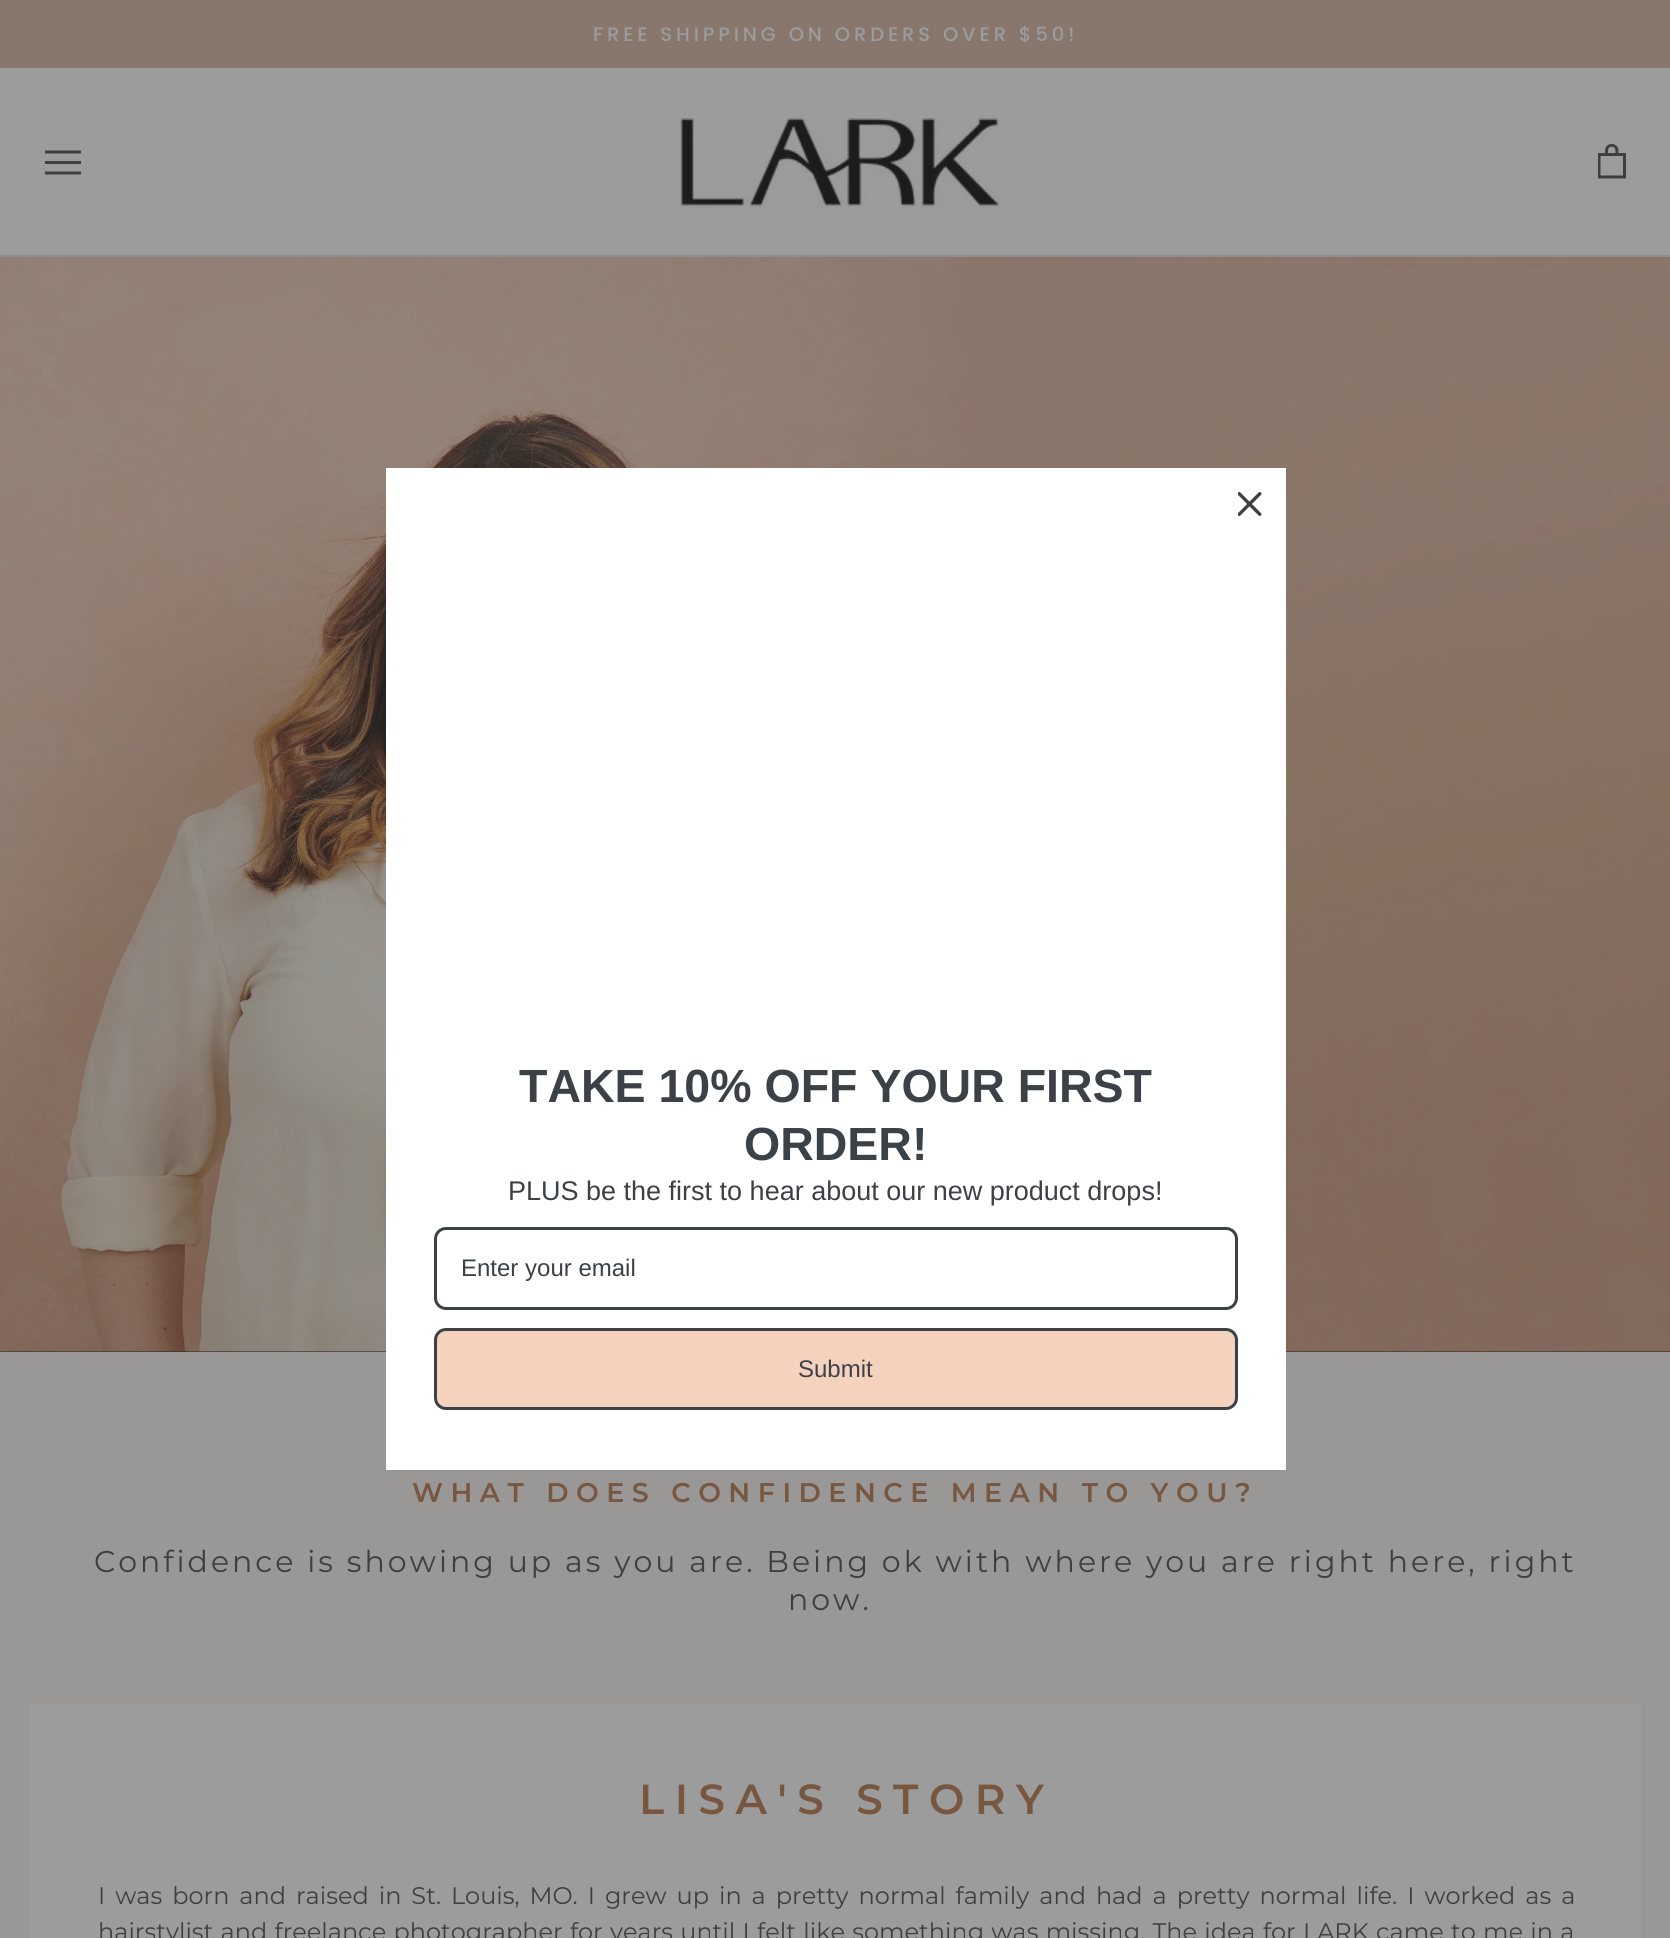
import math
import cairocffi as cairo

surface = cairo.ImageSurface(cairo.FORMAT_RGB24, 1670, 1938)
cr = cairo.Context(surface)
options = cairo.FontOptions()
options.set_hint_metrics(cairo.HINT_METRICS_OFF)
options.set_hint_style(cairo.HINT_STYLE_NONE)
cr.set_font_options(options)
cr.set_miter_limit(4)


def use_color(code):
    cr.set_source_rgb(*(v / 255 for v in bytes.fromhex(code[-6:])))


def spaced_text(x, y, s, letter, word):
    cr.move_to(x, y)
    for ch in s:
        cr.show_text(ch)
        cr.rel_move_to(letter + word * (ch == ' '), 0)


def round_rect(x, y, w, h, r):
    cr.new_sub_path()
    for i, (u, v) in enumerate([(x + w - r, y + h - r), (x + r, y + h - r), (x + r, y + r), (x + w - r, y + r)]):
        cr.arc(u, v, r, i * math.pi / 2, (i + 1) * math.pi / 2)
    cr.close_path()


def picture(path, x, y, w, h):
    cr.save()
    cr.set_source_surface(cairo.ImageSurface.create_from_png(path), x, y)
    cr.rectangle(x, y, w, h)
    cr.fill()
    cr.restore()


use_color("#88776d")
cr.paint()
cr.select_font_face("Poppins Medium")
cr.set_font_size(19.5)
use_color("#9c9c9c")
spaced_text(593, 41, "FREE SHIPPING ON ORDERS OVER $50!", 3.9, 0)
cr.rectangle(0, 68, 1670, 187)
cr.fill()
use_color("#8e8e8e")
cr.rectangle(0, 255, 1670, 2)
cr.fill()
use_color("#3f3f3f")
cr.new_path()
cr.move_to(45, 174.5)
cr.line_to(45, 171.5)
cr.line_to(81, 171.5)
cr.line_to(81, 174.5)
cr.close_path()
cr.move_to(45, 161)
cr.line_to(81, 161)
cr.line_to(81, 164)
cr.line_to(45, 164)
cr.close_path()
cr.move_to(45, 150.5)
cr.line_to(81, 150.5)
cr.line_to(81, 153.5)
cr.line_to(45, 153.5)
cr.close_path()
cr.fill()
picture("img1.png", 680, 118, 320, 91)
picture("img2.png", 1598, 144, 28, 35)
use_color("#262626")
cr.rectangle(0, 257, 1670, 1095)
cr.fill()
picture("img3.png", 0, 257, 1670, 1095)
use_color("#999896")
cr.rectangle(0, 1352, 1670, 586)
cr.fill()
cr.select_font_face("Montserrat SemiBold")
cr.set_font_size(27)
use_color("#785740")
spaced_text(412, 1502, "WHAT DOES CONFIDENCE MEAN TO YOU?", 7.5, 0)
cr.select_font_face("Montserrat")
cr.set_font_size(30)
use_color("#3f3f3f")
spaced_text(94, 1572, "Confidence is showing up as you are. Being ok with where you are right here, right", 3, 0)
spaced_text(788, 1610, "now.", 3, 0)
use_color("#9c9c9c")
cr.rectangle(30, 1704, 1611, 234)
cr.fill()
cr.select_font_face("Montserrat SemiBold")
cr.set_font_size(42)
use_color("#785740")
spaced_text(639, 1814, "LISA'S STORY", 10.5, 0)
cr.select_font_face("Montserrat")
cr.set_font_size(24)
use_color("#3f3f3f")
spaced_text(98, 1904, "I was born and raised in St. Louis, MO. I grew up in a pretty normal family and had a pretty normal life. I worked as a", 0, 3.7)
spaced_text(98, 1940, "hairstylist and freelance photographer for years until I felt like something was missing. The idea for LARK came to me in a", 0, 1)
use_color("#ffffff")
cr.rectangle(386, 468, 900, 1002)
cr.fill()
picture("img4.png", 1238, 492, 24, 24)
cr.select_font_face("Liberation Sans", cairo.FONT_SLANT_NORMAL, cairo.FONT_WEIGHT_BOLD)
cr.set_font_size(46.5)
use_color("#3c4148")
cr.move_to(519, 1102)
cr.show_text("TAKE 10% OFF YOUR FIRST")
cr.move_to(744, 1160)
cr.show_text("ORDER!")
cr.select_font_face("Liberation Sans")
cr.set_font_size(27)
cr.move_to(508, 1200)
cr.show_text("PLUS be the first to hear about our new product drops!")
round_rect(435.5, 1228.5, 801, 80, 10.5)
cr.set_line_width(3)
cr.stroke()
cr.set_font_size(24)
cr.move_to(461, 1276)
cr.show_text("Enter your email")
use_color("#f4d2be")
round_rect(435.5, 1329.5, 801, 79, 10.5)
cr.fill_preserve()
use_color("#3c4148")
cr.stroke()
cr.move_to(798, 1377)
cr.show_text("Submit")
surface.write_to_png("result.png")
